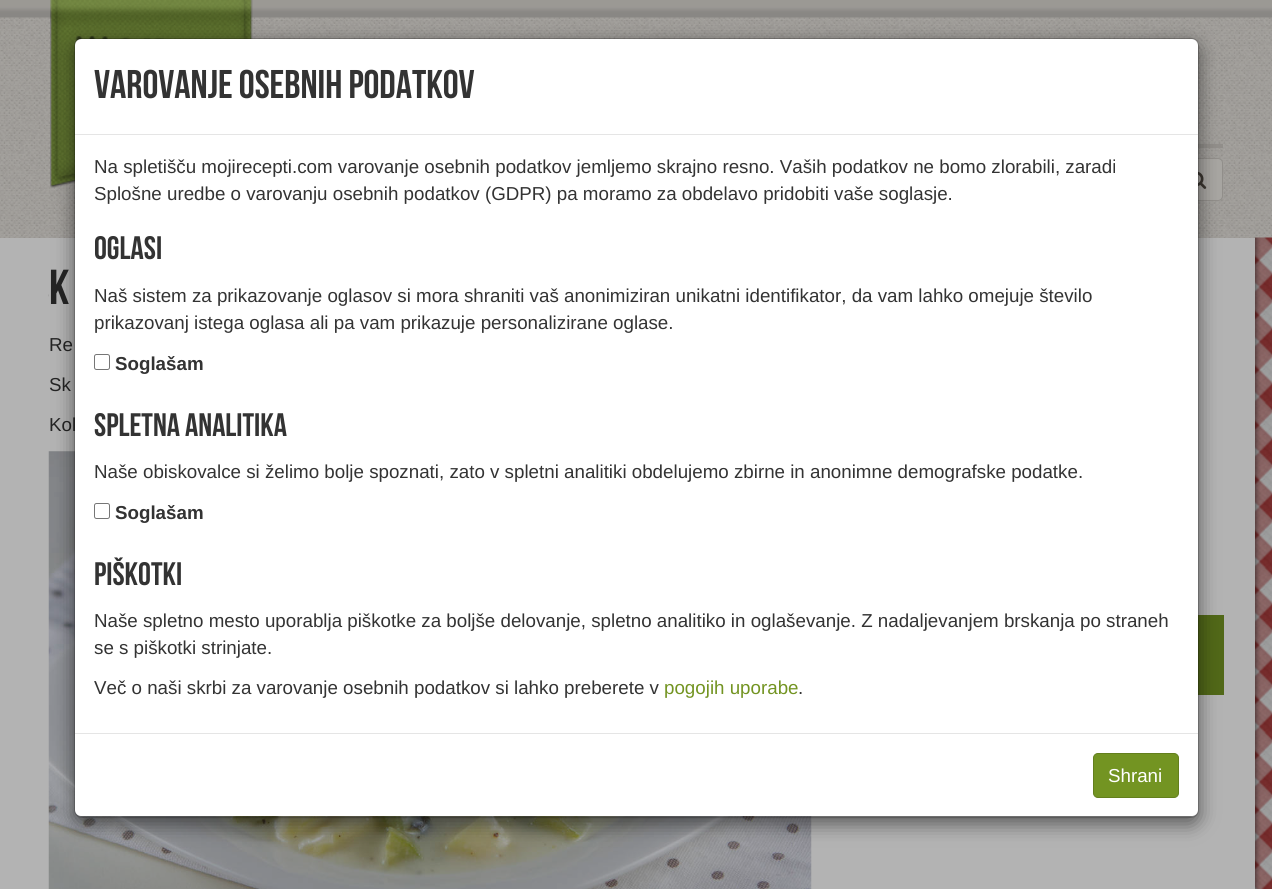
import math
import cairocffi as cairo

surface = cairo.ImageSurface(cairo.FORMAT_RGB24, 1272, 889)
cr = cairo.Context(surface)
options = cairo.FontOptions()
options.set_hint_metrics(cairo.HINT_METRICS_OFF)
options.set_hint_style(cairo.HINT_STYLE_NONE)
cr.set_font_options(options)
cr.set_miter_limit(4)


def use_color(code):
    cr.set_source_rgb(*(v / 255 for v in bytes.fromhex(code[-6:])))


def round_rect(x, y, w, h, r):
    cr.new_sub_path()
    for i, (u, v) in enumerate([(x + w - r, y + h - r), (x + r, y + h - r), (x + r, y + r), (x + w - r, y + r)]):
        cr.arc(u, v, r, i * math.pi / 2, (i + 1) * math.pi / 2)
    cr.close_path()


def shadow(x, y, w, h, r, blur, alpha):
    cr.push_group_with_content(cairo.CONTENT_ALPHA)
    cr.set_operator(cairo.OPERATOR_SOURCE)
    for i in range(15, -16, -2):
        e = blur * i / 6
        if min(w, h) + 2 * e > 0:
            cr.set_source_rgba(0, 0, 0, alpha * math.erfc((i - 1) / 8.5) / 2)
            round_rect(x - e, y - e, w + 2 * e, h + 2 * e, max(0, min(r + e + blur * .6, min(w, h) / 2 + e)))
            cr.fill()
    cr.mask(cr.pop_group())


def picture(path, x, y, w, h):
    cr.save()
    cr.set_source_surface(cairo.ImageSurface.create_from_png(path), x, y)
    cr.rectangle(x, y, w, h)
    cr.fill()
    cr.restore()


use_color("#ffffff")
cr.paint()
picture("img1.png", 0, 17, 1272, 221)
picture("img2.png", 0, 0, 1272, 18)
picture("img3.png", 50, 0, 203, 188)
use_color("#928f8b")
cr.rectangle(1198, 144, 25, 4)
cr.fill()
use_color("#a8a6a2")
cr.new_path()
cr.move_to(1173.5, 158.5)
cr.line_to(1218, 158.5)
cr.curve_to(1220.5, 158.5, 1222.5, 160.5, 1222.5, 163)
cr.line_to(1222.5, 196)
cr.curve_to(1222.5, 198.5, 1220.5, 200.5, 1218, 200.5)
cr.line_to(1173.5, 200.5)
cr.close_path()
cr.fill_preserve()
use_color("#928f8b")
cr.set_line_width(1)
cr.stroke()
picture("img4.png", 1198, 171, 9, 18)
use_color("#b3b3b3")
cr.rectangle(0, 238, 1255, 651)
cr.fill()
picture("img5.png", 1255, 237, 17, 652)
picture("img6.png", 48, 294, 1, 3)
cr.select_font_face("Bebas Neue")
cr.set_font_size(49)
use_color("#242424")
cr.move_to(49, 304)
cr.show_text("K")
cr.select_font_face("Liberation Sans")
cr.set_font_size(18.75)
cr.move_to(49, 351)
cr.show_text("Re")
cr.move_to(49, 391)
cr.show_text("Sk")
cr.move_to(49, 431)
cr.show_text("Kol")
picture("img7.png", 48, 451, 764, 438)
use_color("#516818")
cr.rectangle(1198, 615, 26, 80)
cr.fill()
use_color("#000000")
shadow(74, 44, 1125, 780, 8, 9.5, 0.5)
use_color("#ffffff")
round_rect(75, 39, 1123, 777, 6)
cr.fill()
round_rect(74.5, 38.5, 1124, 779, 7.5)
cr.set_source_rgba(0, 0, 0, 0.2)
cr.stroke()
use_color("#e5e5e5")
cr.rectangle(75, 134, 1123, 1)
cr.fill()
cr.select_font_face("Bebas Neue")
cr.set_font_size(40)
use_color("#333333")
cr.move_to(94, 98)
cr.show_text("Varovanje osebnih podatkov")
cr.select_font_face("Liberation Sans")
cr.set_font_size(18.75)
cr.move_to(94, 173)
cr.show_text("Na spletišču mojirecepti.com varovanje osebnih podatkov jemljemo skrajno resno. Vaših podatkov ne bomo zlorabili, zaradi")
cr.move_to(94, 200)
cr.show_text("Splošne uredbe o varovanju osebnih podatkov (GDPR) pa moramo za obdelavo pridobiti vaše soglasje.")
cr.select_font_face("Bebas Neue")
cr.set_font_size(32.5)
cr.move_to(94, 259)
cr.show_text("Oglasi")
cr.select_font_face("Liberation Sans")
cr.set_font_size(18.75)
cr.move_to(94, 302)
cr.show_text("Naš sistem za prikazovanje oglasov si mora shraniti vaš anonimiziran unikatni identifikator, da vam lahko omejuje število")
cr.move_to(94, 329)
cr.show_text("prikazovanj istega oglasa ali pa vam prikazuje personalizirane oglase.")
round_rect(94.5, 354.5, 15, 15, 2)
use_color("#767676")
cr.stroke()
cr.select_font_face("Liberation Sans", cairo.FONT_SLANT_NORMAL, cairo.FONT_WEIGHT_BOLD)
use_color("#333333")
cr.move_to(115, 370)
cr.show_text("Soglašam")
cr.select_font_face("Bebas Neue")
cr.set_font_size(32.5)
cr.move_to(94, 436)
cr.show_text("Spletna analitika")
cr.select_font_face("Liberation Sans")
cr.set_font_size(18.75)
cr.move_to(94, 478)
cr.show_text("Naše obiskovalce si želimo bolje spoznati, zato v spletni analitiki obdelujemo zbirne in anonimne demografske podatke.")
round_rect(94.5, 503.5, 15, 15, 2)
use_color("#767676")
cr.stroke()
cr.select_font_face("Liberation Sans", cairo.FONT_SLANT_NORMAL, cairo.FONT_WEIGHT_BOLD)
use_color("#333333")
cr.move_to(115, 519)
cr.show_text("Soglašam")
cr.select_font_face("Bebas Neue")
cr.set_font_size(32.5)
cr.move_to(94, 585)
cr.show_text("Piškotki")
cr.select_font_face("Liberation Sans")
cr.set_font_size(18.75)
cr.move_to(94, 627)
cr.show_text("Naše spletno mesto uporablja piškotke za boljše delovanje, spletno analitiko in oglaševanje. Z nadaljevanjem brskanja po straneh")
cr.move_to(94, 654)
cr.show_text("se s piškotki strinjate.")
cr.move_to(94, 694)
cr.show_text("Več o naši skrbi za varovanje osebnih podatkov si lahko preberete v")
use_color("#739422")
cr.move_to(664, 694)
cr.show_text("pogojih uporabe")
use_color("#333333")
cr.move_to(798, 694)
cr.show_text(".")
use_color("#e5e5e5")
cr.rectangle(75, 733, 1123, 1)
cr.fill()
use_color("#739422")
round_rect(1093.5, 753.5, 85, 44, 4.5)
cr.fill_preserve()
use_color("#637f1d")
cr.stroke()
use_color("#ffffff")
cr.move_to(1108, 782)
cr.show_text("Shrani")
surface.write_to_png("result.png")
